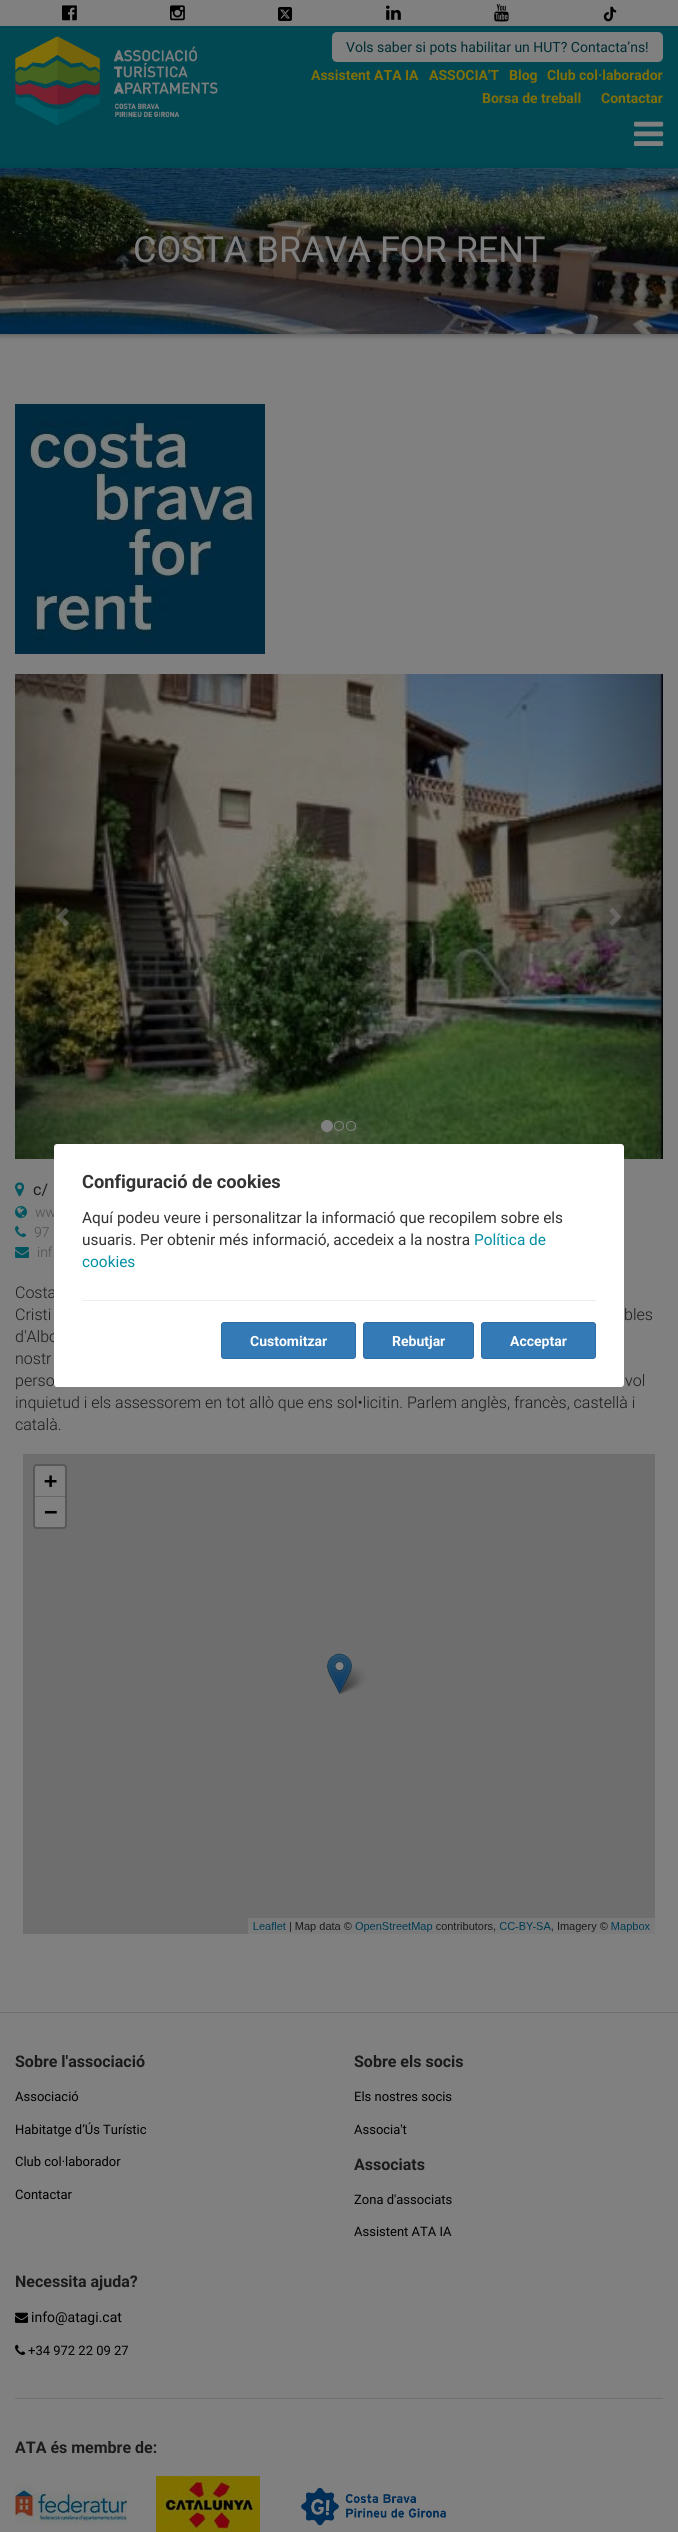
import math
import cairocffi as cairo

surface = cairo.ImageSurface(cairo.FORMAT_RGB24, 678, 2532)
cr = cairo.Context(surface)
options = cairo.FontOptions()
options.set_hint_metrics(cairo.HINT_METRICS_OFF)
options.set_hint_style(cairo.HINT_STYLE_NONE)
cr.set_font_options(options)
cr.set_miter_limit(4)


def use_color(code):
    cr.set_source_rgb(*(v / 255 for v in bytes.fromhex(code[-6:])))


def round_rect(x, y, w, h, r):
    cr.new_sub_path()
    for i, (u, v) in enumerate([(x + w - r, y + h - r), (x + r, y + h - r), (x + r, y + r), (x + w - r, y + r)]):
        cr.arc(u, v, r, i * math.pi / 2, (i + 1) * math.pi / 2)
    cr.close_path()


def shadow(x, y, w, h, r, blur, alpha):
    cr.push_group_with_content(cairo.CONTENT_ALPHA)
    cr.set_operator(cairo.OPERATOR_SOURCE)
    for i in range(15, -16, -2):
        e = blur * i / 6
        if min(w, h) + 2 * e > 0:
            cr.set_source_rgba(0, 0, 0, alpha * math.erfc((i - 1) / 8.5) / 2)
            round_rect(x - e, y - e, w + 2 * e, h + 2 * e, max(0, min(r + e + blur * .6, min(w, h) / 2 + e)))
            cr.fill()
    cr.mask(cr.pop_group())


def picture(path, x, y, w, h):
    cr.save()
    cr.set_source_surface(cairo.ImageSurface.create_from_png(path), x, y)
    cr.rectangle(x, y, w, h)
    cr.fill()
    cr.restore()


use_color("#808080")
cr.paint()
picture("img1.png", 62, 5, 15, 16)
picture("img2.png", 170, 5, 15, 16)
picture("img3.png", 278, 7, 14, 14)
picture("img4.png", 386, 5, 15, 15)
picture("img5.png", 494, 4, 15, 18)
picture("img6.png", 603, 6, 14, 16)
use_color("#014852")
cr.rectangle(0, 26, 678, 142)
cr.fill()
picture("img7.png", 15, 36, 203, 90)
use_color("#808080")
round_rect(332, 32, 331, 30, 5)
cr.fill()
cr.select_font_face("Roboto")
cr.set_font_size(14)
use_color("#002b32")
cr.move_to(346, 52)
cr.show_text("Vols saber si pots habilitar un HUT? Contacta’ns!")
cr.select_font_face("Roboto", cairo.FONT_SLANT_NORMAL, cairo.FONT_WEIGHT_BOLD)
use_color("#806f0b")
cr.move_to(311, 80)
cr.show_text("Assistent ATA IA")
cr.move_to(429, 80)
cr.show_text("ASSOCIA'T")
cr.move_to(509, 80)
cr.show_text("Blog")
cr.move_to(547, 80)
cr.show_text("Club col·laborador")
cr.move_to(482, 103)
cr.show_text("Borsa de treball")
cr.move_to(601, 103)
cr.show_text("Contactar")
picture("img8.png", 634, 121, 30, 25)
use_color("#000000")
shadow(0, 170, 678, 166, 0, 2.5, 0.26)
picture("img9.png", 0, 168, 678, 166)
cr.select_font_face("Roboto")
cr.set_font_size(36)
use_color("#808080")
cr.move_to(133, 262)
cr.show_text("COSTA BRAVA FOR RENT")
picture("img10.png", 15, 404, 250, 250)
picture("img11.png", 15, 674, 648, 485)
cr.set_source_rgba(0.502, 0.502, 0.502, 0.5)
cr.new_path()
cr.move_to(69, 911)
cr.line_to(63, 917)
cr.line_to(69, 923)
cr.line_to(65.5, 926)
cr.line_to(56.5, 917)
cr.line_to(65.5, 907.5)
cr.close_path()
cr.fill()
cr.new_path()
cr.move_to(621.5, 917)
cr.line_to(612.5, 926)
cr.line_to(609, 923)
cr.line_to(615, 917)
cr.line_to(609, 911)
cr.line_to(612.5, 907.5)
cr.close_path()
cr.fill()
use_color("#808080")
cr.arc(327, 1126, 5.5, 0, 2 * math.pi)
cr.fill_preserve()
cr.set_line_width(1)
cr.stroke()
cr.arc(339, 1126, 4.5, 0, 2 * math.pi)
cr.stroke()
cr.arc(351, 1126, 4.5, 0, 2 * math.pi)
cr.stroke()
picture("img12.png", 15, 1182, 10, 15)
cr.set_font_size(16)
use_color("#1a1a1a")
cr.move_to(33, 1195)
cr.show_text("c/")
picture("img13.png", 15, 1206, 12, 12)
cr.select_font_face("Roboto Light")
cr.set_font_size(14)
use_color("#4d4d4d")
cr.move_to(35, 1217)
cr.show_text("ww")
picture("img14.png", 15, 1226, 11, 11)
cr.move_to(34, 1237)
cr.show_text("97")
picture("img15.png", 15, 1247, 14, 11)
cr.move_to(37, 1257)
cr.show_text("inf")
cr.set_font_size(16)
use_color("#1a1a1a")
cr.move_to(15, 1298)
cr.show_text("Costa")
cr.move_to(15, 1320)
cr.show_text("Cristi")
cr.move_to(624, 1320)
cr.show_text("bles")
cr.move_to(15, 1342)
cr.show_text("d'Albo")
cr.move_to(15, 1364)
cr.show_text("nostr")
cr.move_to(15, 1386)
cr.show_text("perso")
cr.move_to(625, 1386)
cr.show_text("vol")
cr.move_to(15, 1408)
cr.show_text("inquietud i els assessorem en tot allò que ens sol•licitin. Parlem anglès, francès, castellà i")
cr.move_to(15, 1430)
cr.show_text("català.")
picture("img16.png", 23, 1454, 632, 480)
use_color("#6f6f6f")
cr.rectangle(0, 2012, 678, 1)
cr.fill()
cr.select_font_face("Roboto", cairo.FONT_SLANT_NORMAL, cairo.FONT_WEIGHT_BOLD)
use_color("#1a1a1a")
cr.move_to(15, 2067)
cr.show_text("Sobre l'associació")
cr.select_font_face("Roboto")
cr.set_font_size(13)
use_color("#000000")
cr.move_to(15, 2101)
cr.show_text("Associació")
cr.move_to(15, 2134)
cr.show_text("Habitatge d’Ús Turístic")
cr.move_to(15, 2166)
cr.show_text("Club col·laborador")
cr.move_to(15, 2199)
cr.show_text("Contactar")
cr.select_font_face("Roboto", cairo.FONT_SLANT_NORMAL, cairo.FONT_WEIGHT_BOLD)
cr.set_font_size(16)
use_color("#1a1a1a")
cr.move_to(354, 2067)
cr.show_text("Sobre els socis")
cr.select_font_face("Roboto")
cr.set_font_size(13)
use_color("#000000")
cr.move_to(354, 2101)
cr.show_text("Els nostres socis")
cr.move_to(354, 2134)
cr.show_text("Associa't")
cr.select_font_face("Roboto", cairo.FONT_SLANT_NORMAL, cairo.FONT_WEIGHT_BOLD)
cr.set_font_size(16)
use_color("#1a1a1a")
cr.move_to(354, 2170)
cr.show_text("Associats")
cr.select_font_face("Roboto")
cr.set_font_size(13)
use_color("#000000")
cr.move_to(354, 2204)
cr.show_text("Zona d'associats")
cr.move_to(354, 2236)
cr.show_text("Assistent ATA IA")
cr.select_font_face("Roboto", cairo.FONT_SLANT_NORMAL, cairo.FONT_WEIGHT_BOLD)
cr.set_font_size(16)
use_color("#1a1a1a")
cr.move_to(15, 2287)
cr.show_text("Necessita ajuda?")
picture("img17.png", 15, 2312, 13, 11)
cr.select_font_face("Roboto")
cr.set_font_size(14)
use_color("#000000")
cr.move_to(31, 2322)
cr.show_text("info@atagi.cat")
picture("img18.png", 15, 2344, 11, 11)
cr.set_font_size(13)
cr.move_to(28, 2355)
cr.show_text("+34 972 22 09 27")
use_color("#6f6f6f")
cr.rectangle(15, 2398, 648, 1)
cr.fill()
cr.select_font_face("Roboto", cairo.FONT_SLANT_NORMAL, cairo.FONT_WEIGHT_BOLD)
cr.set_font_size(16)
use_color("#1a1a1a")
cr.move_to(15, 2453)
cr.show_text("ATA és membre de:")
picture("img19.png", 15, 2476, 112, 49)
picture("img20.png", 156, 2476, 104, 56)
picture("img21.png", 301, 2487, 145, 39)
use_color("#ffffff")
round_rect(54, 1144, 570, 243, 3)
cr.fill()
cr.set_font_size(18.25)
use_color("#333333")
cr.move_to(82, 1188)
cr.show_text("Configuració de cookies")
use_color("#eeeeee")
cr.rectangle(82, 1300, 514, 1)
cr.fill()
cr.select_font_face("Roboto")
cr.set_font_size(15.4)
use_color("#333333")
cr.move_to(82, 1223)
cr.show_text("Aquí podeu veure i personalitzar la informació que recopilem sobre els")
cr.move_to(82, 1245)
cr.show_text("usuaris. Per obtenir més informació, accedeix a la nostra")
use_color("#018fa3")
cr.move_to(474, 1245)
cr.show_text("Política de")
cr.move_to(82, 1267)
cr.show_text("cookies")
use_color("#337ab7")
round_rect(221.5, 1322.5, 134, 36, 2.5)
cr.fill_preserve()
use_color("#2e6da4")
cr.stroke()
cr.select_font_face("Roboto", cairo.FONT_SLANT_NORMAL, cairo.FONT_WEIGHT_BOLD)
cr.set_font_size(14)
use_color("#ffffff")
cr.move_to(250, 1346)
cr.show_text("Customitzar")
use_color("#337ab7")
round_rect(363.5, 1322.5, 110, 36, 2.5)
cr.fill_preserve()
use_color("#2e6da4")
cr.stroke()
use_color("#ffffff")
cr.move_to(392, 1346)
cr.show_text("Rebutjar")
use_color("#337ab7")
round_rect(481.5, 1322.5, 114, 36, 2.5)
cr.fill_preserve()
use_color("#2e6da4")
cr.stroke()
use_color("#ffffff")
cr.move_to(510, 1346)
cr.show_text("Acceptar")
surface.write_to_png("result.png")
